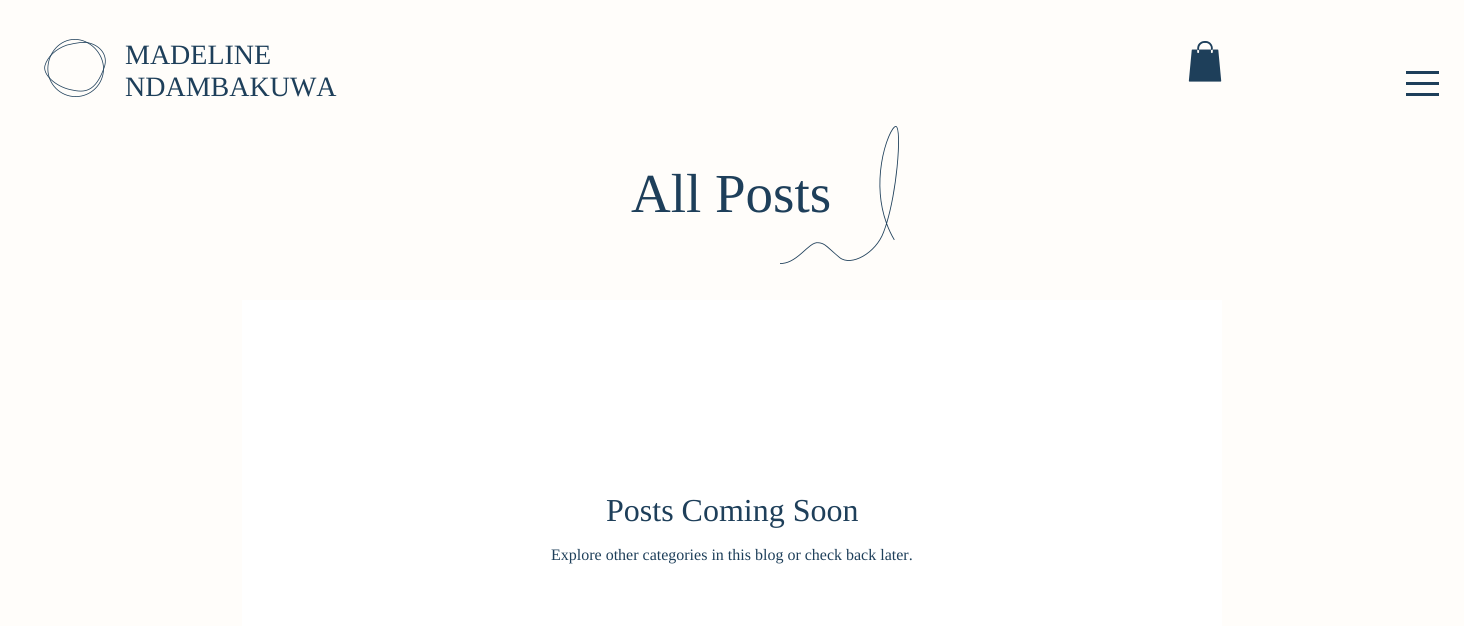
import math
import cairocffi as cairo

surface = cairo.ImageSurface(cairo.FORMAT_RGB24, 1464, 626)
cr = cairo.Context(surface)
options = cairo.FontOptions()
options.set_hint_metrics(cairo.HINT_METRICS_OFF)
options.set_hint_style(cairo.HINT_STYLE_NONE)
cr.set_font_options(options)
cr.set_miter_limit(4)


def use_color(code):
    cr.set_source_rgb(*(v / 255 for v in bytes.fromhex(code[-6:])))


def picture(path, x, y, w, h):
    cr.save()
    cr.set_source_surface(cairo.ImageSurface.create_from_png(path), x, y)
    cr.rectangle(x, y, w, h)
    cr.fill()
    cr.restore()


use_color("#fffdfa")
cr.paint()
picture("img1.png", 44, 39, 62, 58)
cr.select_font_face("Liberation Serif")
cr.set_font_size(28)
use_color("#1e3f5a")
cr.move_to(125, 64)
cr.show_text("MADELINE")
cr.move_to(125, 96)
cr.show_text("NDAMBAKUWA")
picture("img2.png", 1188, 41, 34, 41)
cr.rectangle(1406, 93, 33, 3)
cr.fill()
cr.rectangle(1406, 71, 33, 3)
cr.fill()
cr.rectangle(1406, 82, 33, 3)
cr.fill()
cr.set_font_size(55)
cr.move_to(631, 212)
cr.show_text("All Posts")
picture("img3.png", 780, 126, 119, 138)
use_color("#ffffff")
cr.rectangle(242, 300, 980, 326)
cr.fill()
cr.set_font_size(32)
use_color("#1e3f5a")
cr.move_to(606, 521)
cr.show_text("Posts Coming Soon")
cr.set_font_size(16)
cr.move_to(551, 560)
cr.show_text("Explore other categories in this blog or check back later.")
surface.write_to_png("result.png")
